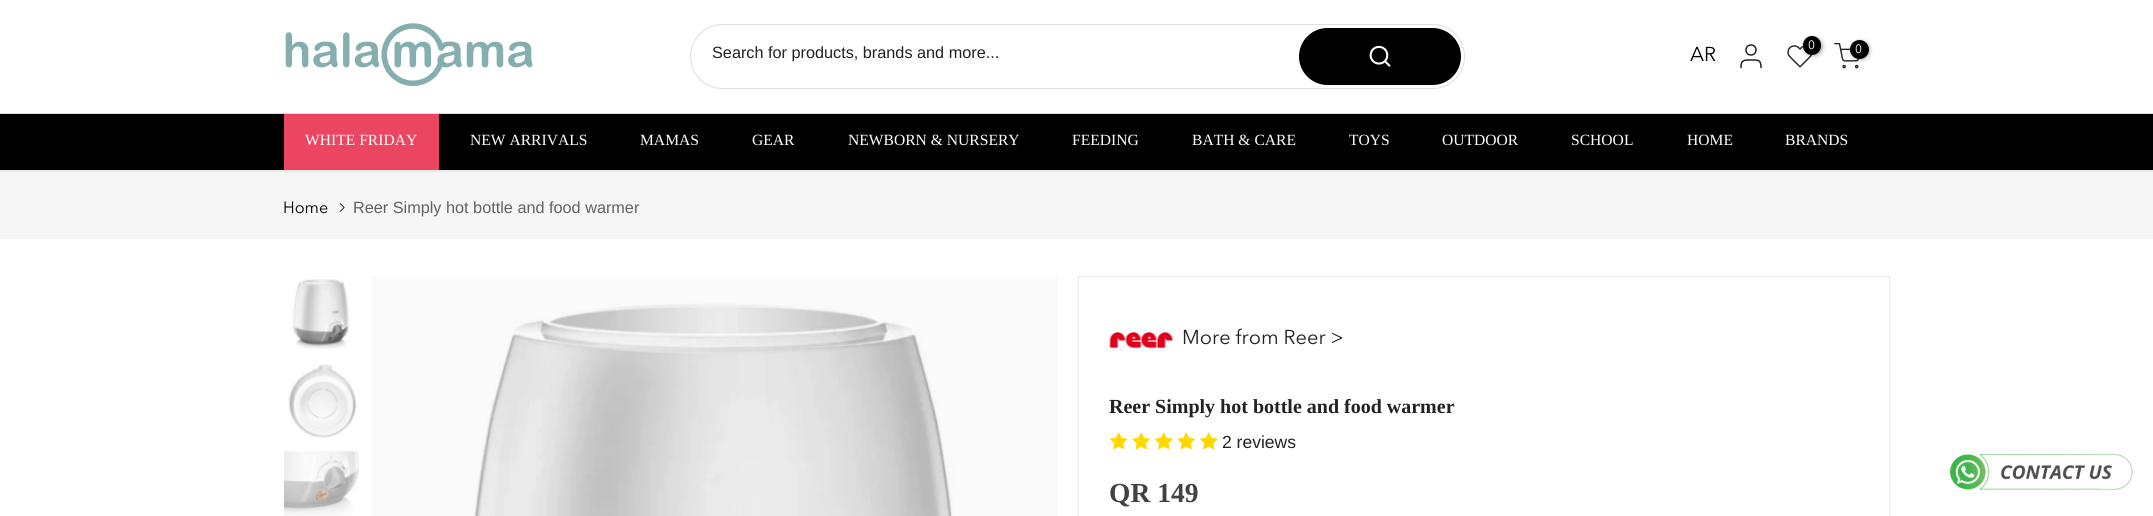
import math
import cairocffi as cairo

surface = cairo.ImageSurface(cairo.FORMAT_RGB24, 2153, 516)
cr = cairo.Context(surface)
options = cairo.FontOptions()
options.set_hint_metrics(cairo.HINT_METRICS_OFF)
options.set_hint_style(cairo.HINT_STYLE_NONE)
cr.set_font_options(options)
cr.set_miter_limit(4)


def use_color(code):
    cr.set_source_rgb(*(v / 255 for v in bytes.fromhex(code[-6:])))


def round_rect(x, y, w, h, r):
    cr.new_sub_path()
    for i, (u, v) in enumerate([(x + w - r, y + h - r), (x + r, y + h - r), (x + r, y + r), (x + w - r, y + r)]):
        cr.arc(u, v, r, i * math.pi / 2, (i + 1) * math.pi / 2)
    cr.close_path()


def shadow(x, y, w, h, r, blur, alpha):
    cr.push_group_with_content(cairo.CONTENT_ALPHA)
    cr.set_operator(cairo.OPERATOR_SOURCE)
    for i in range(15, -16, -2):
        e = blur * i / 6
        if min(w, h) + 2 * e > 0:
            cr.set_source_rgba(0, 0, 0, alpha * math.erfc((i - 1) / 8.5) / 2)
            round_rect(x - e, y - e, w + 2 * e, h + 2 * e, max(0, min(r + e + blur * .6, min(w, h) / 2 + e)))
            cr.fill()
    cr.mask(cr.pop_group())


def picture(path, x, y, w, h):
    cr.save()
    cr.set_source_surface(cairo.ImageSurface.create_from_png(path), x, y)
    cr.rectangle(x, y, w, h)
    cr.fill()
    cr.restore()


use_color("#ffffff")
cr.paint()
use_color("#f6f6f6")
cr.rectangle(0, 170, 2153, 69)
cr.fill()
cr.save()
cr.rectangle(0, 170, 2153, 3)
cr.clip()
use_color("#000000")
shadow(0, 1, 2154, 170, 0, 2, 0.1)
cr.restore()
use_color("#dedede")
cr.rectangle(0, 113, 2153, 1)
cr.fill()
picture("img1.png", 285, 23, 248, 64)
round_rect(690.5, 24.5, 774, 64, 32)
cr.set_line_width(1)
cr.stroke()
cr.select_font_face("Liberation Sans")
cr.set_font_size(16.25)
use_color("#222222")
cr.move_to(712, 58)
cr.show_text("Search for products, brands and more...")
use_color("#000000")
round_rect(1299, 28, 162, 57, 28.5)
cr.fill()
picture("img2.png", 1369, 45, 22, 22)
cr.select_font_face("Avenir Next")
cr.set_font_size(20)
cr.move_to(1690, 61)
cr.show_text("AR")
cr.new_path()
cr.arc(1751, 50, 5, 0, 2 * math.pi)
use_color("#222222")
cr.set_line_width(1.5)
cr.stroke()
cr.new_path()
cr.move_to(1761, 67.5)
cr.curve_to(1761, 59.5, 1758, 60, 1751, 60)
cr.curve_to(1744.5, 60, 1741, 59.5, 1741, 67.5)
cr.set_line_cap(cairo.LINE_CAP_ROUND)
cr.set_line_join(cairo.LINE_JOIN_ROUND)
cr.stroke()
picture("img3.png", 1787, 45, 26, 23)
use_color("#000000")
shadow(1804, 38, 19, 18, 9, 2, 0.3)
use_color("#000000")
round_rect(1803, 36, 18, 19, 9)
cr.fill()
cr.set_font_size(12)
use_color("#ffffff")
cr.move_to(1808, 49)
cr.show_text("0")
picture("img4.png", 1834, 43, 26, 26)
use_color("#000000")
shadow(1851, 41, 19, 19, 9.5, 2, 0.3)
use_color("#000000")
cr.arc(1859.5, 49.5, 9.5, 0, 2 * math.pi)
cr.fill()
use_color("#ffffff")
cr.move_to(1855, 53)
cr.show_text("0")
use_color("#000000")
cr.rectangle(0, 114, 2153, 56)
cr.fill()
use_color("#ec4561")
cr.rectangle(284, 114, 155, 56)
cr.fill()
cr.select_font_face("Liberation Serif")
cr.set_font_size(15.6)
use_color("#ffffff")
cr.move_to(305, 145)
cr.show_text("WHITE FRIDAY")
cr.move_to(470, 145)
cr.show_text("NEW ARRIVALS")
cr.move_to(640, 145)
cr.show_text("MAMAS")
cr.move_to(752, 145)
cr.show_text("GEAR")
cr.move_to(848, 145)
cr.show_text("NEWBORN & NURSERY")
cr.move_to(1072, 145)
cr.show_text("FEEDING")
cr.move_to(1192, 145)
cr.show_text("BATH & CARE")
cr.move_to(1349, 145)
cr.show_text("TOYS")
cr.move_to(1442, 145)
cr.show_text("OUTDOOR")
cr.move_to(1571, 145)
cr.show_text("SCHOOL")
cr.move_to(1687, 145)
cr.show_text("HOME")
cr.move_to(1785, 145)
cr.show_text("BRANDS")
cr.select_font_face("Avenir Next")
cr.set_font_size(16.25)
use_color("#000000")
cr.move_to(283, 213)
cr.show_text("Home")
picture("img5.png", 339, 203, 6, 9)
cr.select_font_face("Liberation Sans")
use_color("#626262")
cr.move_to(353, 213)
cr.show_text("Reer Simply hot bottle and food warmer")
picture("img6.png", 292, 279, 58, 70)
picture("img7.png", 288, 364, 69, 74)
picture("img8.png", 284, 451, 75, 65)
picture("img9.png", 371, 276, 687, 240)
cr.rectangle(1078.5, 276.5, 811, 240)
use_color("#ebebeb")
cr.set_line_width(1)
cr.set_line_cap(cairo.LINE_CAP_BUTT)
cr.set_line_join(cairo.LINE_JOIN_MITER)
cr.stroke()
picture("img10.png", 1109, 332, 64, 16)
cr.select_font_face("Avenir Next")
cr.set_font_size(20)
use_color("#222222")
cr.move_to(1182, 344)
cr.show_text("More from Reer >")
cr.select_font_face("Liberation Serif", cairo.FONT_SLANT_NORMAL, cairo.FONT_WEIGHT_BOLD)
cr.move_to(1109, 413)
cr.show_text("Reer Simply hot bottle and food warmer")
picture("img11.png", 1110, 432, 18, 18)
picture("img12.png", 1132, 432, 18, 18)
picture("img11.png", 1155, 432, 18, 18)
picture("img12.png", 1177, 432, 18, 18)
picture("img11.png", 1200, 432, 18, 18)
cr.select_font_face("Liberation Sans")
cr.set_font_size(17.5)
cr.move_to(1222, 448)
cr.show_text("2 reviews")
cr.select_font_face("Liberation Serif", cairo.FONT_SLANT_NORMAL, cairo.FONT_WEIGHT_BOLD)
cr.set_font_size(27.5)
use_color("#414142")
cr.move_to(1109, 502)
cr.show_text("QR 149")
picture("img13.png", 1949, 454, 184, 36)
surface.write_to_png("result.png")
